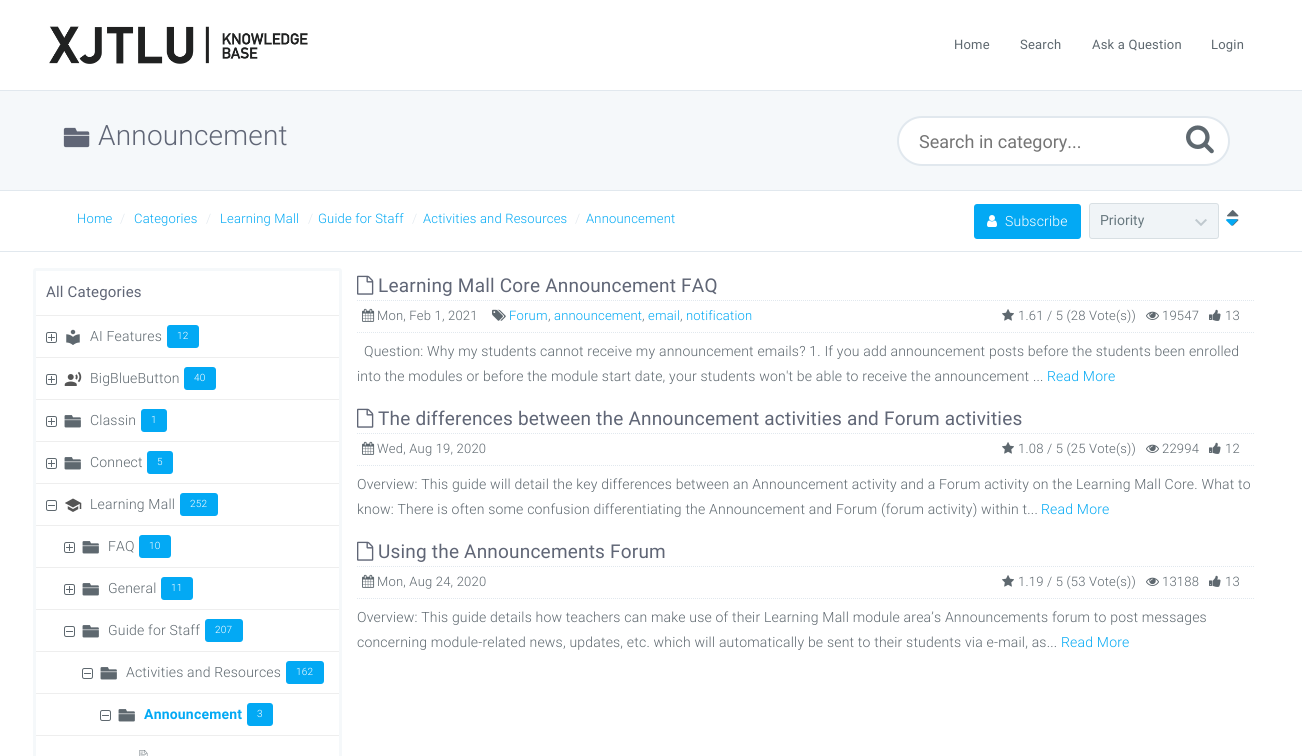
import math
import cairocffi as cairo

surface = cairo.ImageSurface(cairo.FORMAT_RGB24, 1302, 756)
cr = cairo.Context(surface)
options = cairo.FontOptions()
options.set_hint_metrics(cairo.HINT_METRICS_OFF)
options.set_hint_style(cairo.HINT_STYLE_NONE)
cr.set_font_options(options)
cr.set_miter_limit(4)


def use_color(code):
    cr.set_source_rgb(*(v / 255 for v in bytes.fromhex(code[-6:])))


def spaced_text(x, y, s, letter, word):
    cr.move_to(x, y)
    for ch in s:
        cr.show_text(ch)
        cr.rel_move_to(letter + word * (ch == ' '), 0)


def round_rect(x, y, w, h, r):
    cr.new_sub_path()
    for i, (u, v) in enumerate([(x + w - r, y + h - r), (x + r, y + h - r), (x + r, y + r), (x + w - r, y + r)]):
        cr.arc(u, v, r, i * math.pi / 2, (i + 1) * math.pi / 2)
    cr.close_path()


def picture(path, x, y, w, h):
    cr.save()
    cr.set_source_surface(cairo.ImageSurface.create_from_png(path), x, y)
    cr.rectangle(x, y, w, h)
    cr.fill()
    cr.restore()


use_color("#ffffff")
cr.paint()
picture("img1.png", 49, 26, 259, 38)
cr.select_font_face("Roboto")
cr.set_font_size(13)
use_color("#5e686f")
spaced_text(954, 49, "Home", 0.2, 0)
spaced_text(1020, 49, "Search", 0.2, 0)
spaced_text(1092, 49, "Ask a Question", 0.2, 0)
spaced_text(1211, 49, "Login", 0.2, 0)
use_color("#f5f8fa")
cr.rectangle(0, 91, 1302, 99)
cr.fill()
use_color("#e1e8ee")
cr.rectangle(0, 90, 1302, 1)
cr.fill()
cr.rectangle(0, 190, 1302, 1)
cr.fill()
picture("img2.png", 63, 127, 27, 21)
cr.select_font_face("Roboto Light")
cr.set_font_size(28)
use_color("#606676")
spaced_text(98, 145, "Announcement", 0.2, 0)
use_color("#ffffff")
round_rect(898, 117, 331, 48, 24)
cr.fill_preserve()
use_color("#e1e8ee")
cr.stroke()
cr.select_font_face("Roboto")
cr.set_font_size(18)
use_color("#757575")
cr.move_to(919, 148)
cr.show_text("Search in category...")
picture("img3.png", 1186, 125, 28, 29)
use_color("#e1e8ee")
cr.rectangle(0, 251, 1302, 1)
cr.fill()
cr.select_font_face("Roboto Light")
cr.set_font_size(13)
use_color("#03a9f4")
spaced_text(77, 223, "Home", 0.2, 0)
use_color("#e1e8ee")
spaced_text(120, 223, "/", 0.2, 0)
use_color("#03a9f4")
spaced_text(134, 223, "Categories", 0.2, 0)
use_color("#e1e8ee")
spaced_text(206, 223, "/", 0.2, 0)
use_color("#03a9f4")
spaced_text(220, 223, "Learning Mall", 0.2, 0)
use_color("#e1e8ee")
spaced_text(308, 223, "/", 0.2, 0)
use_color("#03a9f4")
spaced_text(318, 223, "Guide for Staff", 0.2, 0)
use_color("#e1e8ee")
spaced_text(412, 223, "/", 0.2, 0)
use_color("#03a9f4")
spaced_text(423, 223, "Activities and Resources", 0.2, 0)
use_color("#e1e8ee")
spaced_text(575, 223, "/", 0.2, 0)
use_color("#03a9f4")
spaced_text(586, 223, "Announcement", 0.2, 0)
round_rect(974, 204, 107, 35, 3)
cr.fill()
picture("img4.png", 987, 215, 10, 12)
cr.set_font_size(14)
use_color("#ffffff")
spaced_text(1005, 226, "Subscribe", 0.2, 0)
use_color("#f0f4f7")
round_rect(1089.5, 203.5, 129, 35, 2.5)
cr.fill_preserve()
use_color("#d8dfe3")
cr.set_line_width(1)
cr.stroke()
cr.select_font_face("Roboto")
use_color("#697980")
cr.move_to(1100, 225)
cr.show_text("Priority")
picture("img5.png", 1195, 219, 12, 7)
picture("img6.png", 1227, 210, 12, 16)
picture("img7.png", 1226, 219, 12, 7)
round_rect(34.5, 269.5, 306, 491, 1.5)
use_color("#f5f8fa")
cr.set_line_width(3)
cr.stroke()
cr.set_font_size(15)
use_color("#606676")
spaced_text(46, 297, "All Categories", 0.2, 0)
use_color("#eeeeee")
cr.rectangle(36, 315, 303, 1)
cr.fill()
cr.rectangle(36, 357, 303, 1)
cr.fill()
picture("img8.png", 46, 332, 11, 11)
picture("img9.png", 66, 329, 14, 16)
cr.select_font_face("Roboto Light")
cr.set_font_size(14)
use_color("#5e686f")
spaced_text(90, 341, "AI Features", 0.2, 0)
use_color("#03a9f4")
round_rect(167, 325, 32, 23, 3)
cr.fill()
cr.set_font_size(10)
use_color("#ffffff")
spaced_text(177, 339, "12", 0.2, 0)
use_color("#eeeeee")
cr.rectangle(36, 399, 303, 1)
cr.fill()
picture("img8.png", 46, 374, 11, 11)
picture("img10.png", 64, 371, 18, 15)
cr.set_font_size(14)
use_color("#5e686f")
spaced_text(90, 383, "BigBlueButton", 0.2, 0)
use_color("#03a9f4")
round_rect(184, 367, 32, 23, 3)
cr.fill()
cr.set_font_size(10)
use_color("#ffffff")
spaced_text(194, 381, "40", 0.2, 0)
use_color("#eeeeee")
cr.rectangle(36, 441, 303, 1)
cr.fill()
picture("img8.png", 46, 416, 11, 11)
picture("img11.png", 64, 415, 17, 13)
cr.set_font_size(14)
use_color("#5e686f")
spaced_text(90, 425, "Classin", 0.2, 0)
use_color("#03a9f4")
round_rect(141, 409, 26, 23, 3)
cr.fill()
cr.set_font_size(10)
use_color("#ffffff")
spaced_text(151, 423, "1", 0.2, 0)
use_color("#eeeeee")
cr.rectangle(36, 483, 303, 1)
cr.fill()
picture("img8.png", 46, 458, 11, 11)
picture("img11.png", 64, 457, 17, 13)
cr.set_font_size(14)
use_color("#5e686f")
spaced_text(90, 467, "Connect", 0.2, 0)
use_color("#03a9f4")
round_rect(147, 451, 26, 23, 3)
cr.fill()
cr.set_font_size(10)
use_color("#ffffff")
spaced_text(157, 465, "5", 0.2, 0)
use_color("#eeeeee")
cr.rectangle(36, 525, 303, 1)
cr.fill()
picture("img12.png", 46, 500, 11, 11)
picture("img13.png", 65, 498, 17, 14)
cr.set_font_size(14)
use_color("#5e686f")
spaced_text(90, 509, "Learning Mall", 0.2, 0)
use_color("#03a9f4")
round_rect(180, 493, 38, 23, 3)
cr.fill()
cr.set_font_size(10)
use_color("#ffffff")
spaced_text(190, 507, "252", 0.2, 0)
use_color("#eeeeee")
cr.rectangle(36, 567, 303, 1)
cr.fill()
picture("img8.png", 64, 542, 11, 11)
picture("img11.png", 82, 541, 17, 13)
cr.set_font_size(14)
use_color("#5e686f")
spaced_text(108, 551, "FAQ", 0.2, 0)
use_color("#03a9f4")
round_rect(139, 535, 32, 23, 3)
cr.fill()
cr.set_font_size(10)
use_color("#ffffff")
spaced_text(149, 549, "10", 0.2, 0)
use_color("#eeeeee")
cr.rectangle(36, 609, 303, 1)
cr.fill()
picture("img8.png", 64, 584, 11, 11)
picture("img11.png", 82, 583, 17, 13)
cr.set_font_size(14)
use_color("#5e686f")
spaced_text(108, 593, "General", 0.2, 0)
use_color("#03a9f4")
round_rect(161, 577, 32, 23, 3)
cr.fill()
cr.set_font_size(10)
use_color("#ffffff")
spaced_text(171, 591, "11", 0.2, 0)
use_color("#eeeeee")
cr.rectangle(36, 651, 303, 1)
cr.fill()
picture("img12.png", 64, 626, 11, 11)
picture("img11.png", 82, 625, 17, 13)
cr.set_font_size(14)
use_color("#5e686f")
spaced_text(108, 635, "Guide for Staff", 0.2, 0)
use_color("#03a9f4")
round_rect(205, 619, 38, 23, 3)
cr.fill()
cr.set_font_size(10)
use_color("#ffffff")
spaced_text(215, 633, "207", 0.2, 0)
use_color("#eeeeee")
cr.rectangle(36, 693, 303, 1)
cr.fill()
picture("img12.png", 82, 668, 11, 11)
picture("img11.png", 100, 667, 17, 13)
cr.set_font_size(14)
use_color("#5e686f")
spaced_text(126, 677, "Activities and Resources", 0.2, 0)
use_color("#03a9f4")
round_rect(286, 661, 38, 23, 3)
cr.fill()
cr.set_font_size(10)
use_color("#ffffff")
spaced_text(296, 675, "162", 0.2, 0)
use_color("#eeeeee")
cr.rectangle(36, 735, 303, 1)
cr.fill()
picture("img12.png", 100, 710, 11, 11)
picture("img11.png", 118, 709, 17, 13)
cr.select_font_face("Roboto", cairo.FONT_SLANT_NORMAL, cairo.FONT_WEIGHT_BOLD)
cr.set_font_size(14)
use_color("#03a9f4")
spaced_text(144, 719, "Announcement", 0.2, 0)
round_rect(247, 703, 26, 23, 3)
cr.fill()
cr.select_font_face("Roboto Light")
cr.set_font_size(10)
use_color("#ffffff")
spaced_text(257, 717, "3", 0.2, 0)
picture("img14.png", 139, 750, 9, 6)
picture("img15.png", 357, 275, 17, 20)
cr.select_font_face("Roboto")
cr.set_font_size(19)
use_color("#606676")
spaced_text(378, 292, "Learning Mall Core Announcement FAQ", 0.2, 0)
cr.new_path()
cr.move_to(357, 300.5)
cr.line_to(1254, 300.5)
use_color("#e1e8ee")
cr.set_line_width(1)
cr.set_dash([1, 1])
cr.stroke()
cr.new_path()
cr.move_to(357, 332.5)
cr.line_to(1254, 332.5)
cr.stroke()
picture("img16.png", 362, 308, 13, 14)
cr.select_font_face("Roboto Light")
cr.set_font_size(13)
use_color("#5e686f")
spaced_text(377, 320, "Mon, Feb 1, 2021", 0.2, 0)
picture("img17.png", 492, 309, 14, 12)
use_color("#03a9f4")
spaced_text(509, 320, "Forum", 0.2, 0)
use_color("#5e686f")
spaced_text(548, 320, ",", 0.2, 0)
use_color("#03a9f4")
spaced_text(554, 320, "announcement", 0.2, 0)
use_color("#5e686f")
spaced_text(642, 320, ",", 0.2, 0)
use_color("#03a9f4")
spaced_text(648, 320, "email", 0.2, 0)
use_color("#5e686f")
spaced_text(680, 320, ",", 0.2, 0)
use_color("#03a9f4")
spaced_text(686, 320, "notification", 0.2, 0)
picture("img18.png", 1002, 309, 12, 12)
use_color("#5e686f")
spaced_text(1018, 320, "1.61 / 5 (28 Vote(s))", 0.2, 0)
picture("img19.png", 1146, 311, 13, 9)
spaced_text(1162, 320, "19547", 0.2, 0)
picture("img20.png", 1209, 309, 12, 12)
spaced_text(1225, 320, "13", 0.2, 0)
cr.set_font_size(14)
spaced_text(364, 356, "Question: Why my students cannot receive my announcement emails? 1. If you add announcement posts before the students been enrolled", 0.2, 0)
spaced_text(357, 381, "into the modules or before the module start date, your students won't be able to receive the announcement ...", 0.2, 0)
use_color("#03a9f4")
spaced_text(1047, 381, "Read More", 0.2, 0)
picture("img15.png", 357, 408, 17, 20)
cr.select_font_face("Roboto")
cr.set_font_size(19)
use_color("#606676")
spaced_text(378, 425, "The differences between the Announcement activities and Forum activities", 0.2, 0)
cr.new_path()
cr.move_to(357, 433.5)
cr.line_to(1254, 433.5)
use_color("#e1e8ee")
cr.stroke()
cr.new_path()
cr.move_to(357, 465.5)
cr.line_to(1254, 465.5)
cr.stroke()
picture("img16.png", 362, 441, 13, 14)
cr.select_font_face("Roboto Light")
cr.set_font_size(13)
use_color("#5e686f")
spaced_text(377, 453, "Wed, Aug 19, 2020", 0.2, 0)
picture("img18.png", 1002, 442, 12, 12)
spaced_text(1018, 453, "1.08 / 5 (25 Vote(s))", 0.2, 0)
picture("img19.png", 1146, 444, 13, 9)
spaced_text(1162, 453, "22994", 0.2, 0)
picture("img20.png", 1209, 442, 12, 12)
spaced_text(1225, 453, "12", 0.2, 0)
cr.set_font_size(14)
spaced_text(357, 489, "Overview: This guide will detail the key differences between an Announcement activity and a Forum activity on the Learning Mall Core. What to", 0.2, 0)
spaced_text(357, 514, "know: There is often some confusion differentiating the Announcement and Forum (forum activity) within t...", 0.2, 0)
use_color("#03a9f4")
spaced_text(1041, 514, "Read More", 0.2, 0)
picture("img15.png", 357, 541, 17, 20)
cr.select_font_face("Roboto")
cr.set_font_size(19)
use_color("#606676")
spaced_text(378, 558, "Using the Announcements Forum", 0.2, 0)
cr.new_path()
cr.move_to(357, 566.5)
cr.line_to(1254, 566.5)
use_color("#e1e8ee")
cr.stroke()
cr.new_path()
cr.move_to(357, 598.5)
cr.line_to(1254, 598.5)
cr.stroke()
picture("img16.png", 362, 574, 13, 14)
cr.select_font_face("Roboto Light")
cr.set_font_size(13)
use_color("#5e686f")
spaced_text(377, 586, "Mon, Aug 24, 2020", 0.2, 0)
picture("img18.png", 1002, 575, 12, 12)
spaced_text(1018, 586, "1.19 / 5 (53 Vote(s))", 0.2, 0)
picture("img19.png", 1146, 577, 13, 9)
spaced_text(1162, 586, "13188", 0.2, 0)
picture("img20.png", 1209, 575, 12, 12)
spaced_text(1225, 586, "13", 0.2, 0)
cr.set_font_size(14)
spaced_text(357, 622, "Overview: This guide details how teachers can make use of their Learning Mall module area’s Announcements forum to post messages", 0.2, 0)
spaced_text(357, 647, "concerning module-related news, updates, etc. which will automatically be sent to their students via e-mail, as...", 0.2, 0)
use_color("#03a9f4")
spaced_text(1061, 647, "Read More", 0.2, 0)
surface.write_to_png("result.png")
